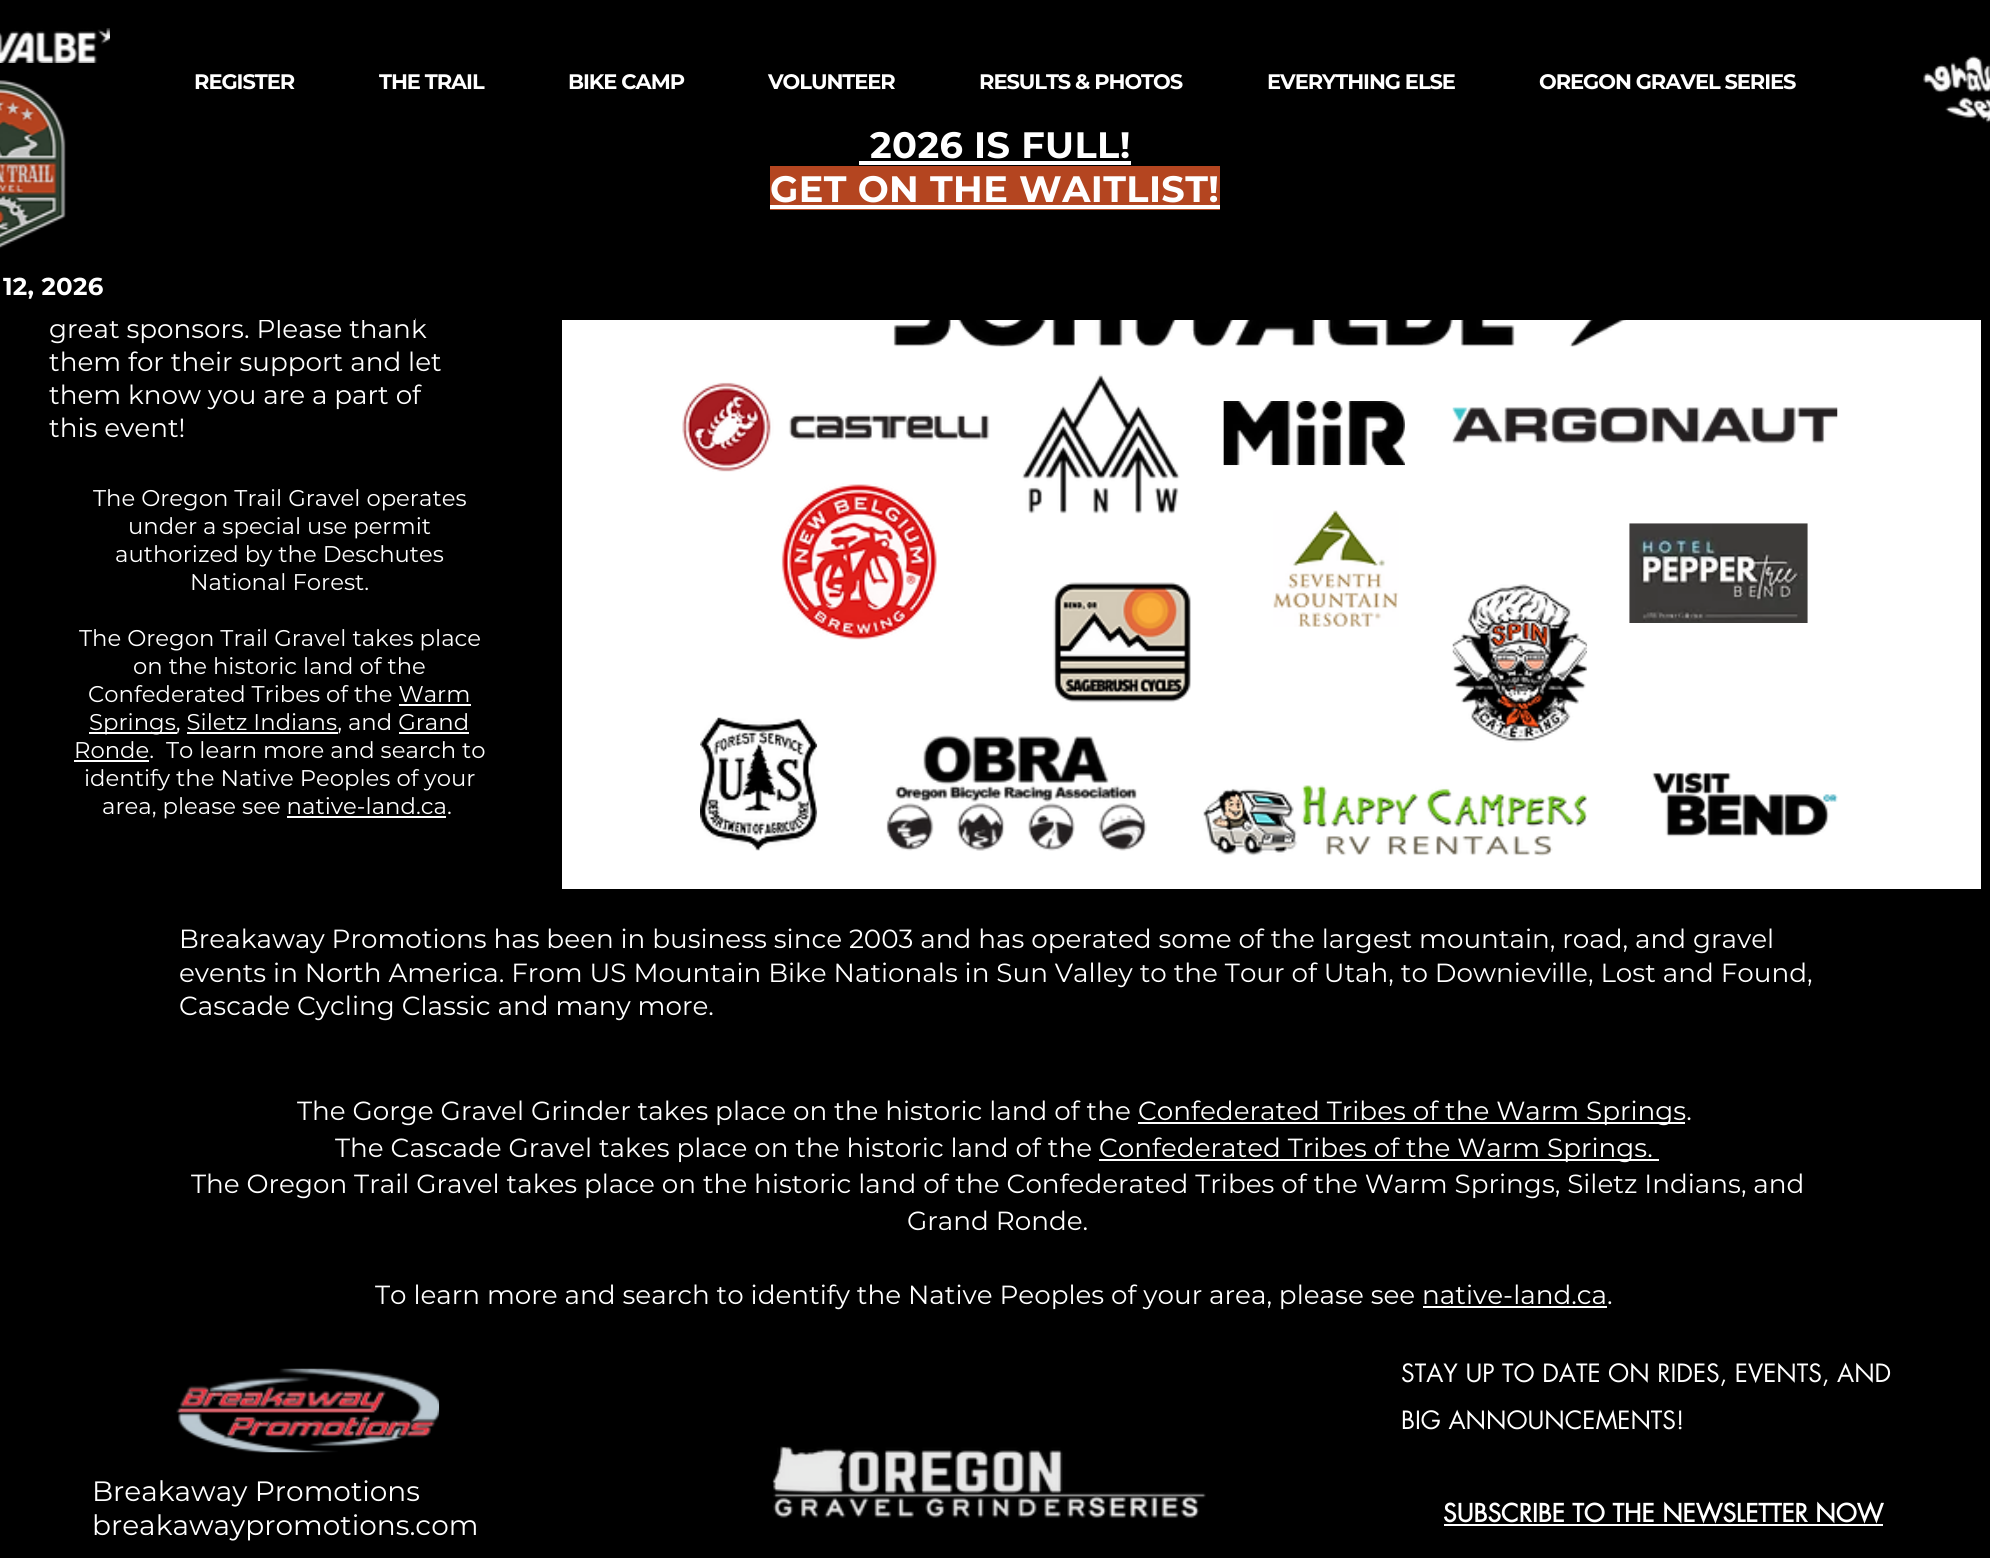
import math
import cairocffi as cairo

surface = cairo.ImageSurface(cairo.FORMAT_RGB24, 1990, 1558)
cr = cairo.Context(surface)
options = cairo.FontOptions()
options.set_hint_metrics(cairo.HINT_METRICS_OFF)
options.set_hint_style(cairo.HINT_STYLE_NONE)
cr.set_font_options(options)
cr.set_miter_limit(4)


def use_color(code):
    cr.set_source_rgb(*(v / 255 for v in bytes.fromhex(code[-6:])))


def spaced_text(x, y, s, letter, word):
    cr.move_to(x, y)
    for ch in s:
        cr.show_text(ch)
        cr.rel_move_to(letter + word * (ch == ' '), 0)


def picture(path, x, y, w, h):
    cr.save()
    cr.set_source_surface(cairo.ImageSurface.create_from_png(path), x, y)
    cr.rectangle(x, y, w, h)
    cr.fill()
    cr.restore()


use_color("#000000")
cr.paint()
picture("img1.png", 0, 28, 110, 35)
picture("img2.png", 0, 80, 66, 169)
cr.select_font_face("Montserrat", cairo.FONT_SLANT_NORMAL, cairo.FONT_WEIGHT_BOLD)
cr.set_font_size(21)
use_color("#ffffff")
spaced_text(194, 89, "REGISTER", -1.05, 0)
spaced_text(379, 89, "THE TRAIL", -1.05, 0)
spaced_text(568, 89, "BIKE CAMP", -1.05, 0)
spaced_text(768, 89, "VOLUNTEER", -1.05, 0)
spaced_text(979, 89, "RESULTS & PHOTOS", -1.05, 0)
spaced_text(1267, 89, "EVERYTHING ELSE", -1.05, 0)
spaced_text(1539, 89, "OREGON GRAVEL SERIES", -1.05, 0)
picture("img3.png", 1923, 55, 67, 68)
cr.set_font_size(36.75)
spaced_text(870, 158, "2026 IS FULL!", 0.4, 0)
cr.rectangle(859, 161, 272, 4)
cr.fill()
use_color("#b44520")
cr.rectangle(770, 166, 450, 44)
cr.fill()
use_color("#ffffff")
spaced_text(770, 202, "GET ON THE WAITLIST!", 0.4, 0)
cr.rectangle(770, 205, 450, 4)
cr.fill()
cr.set_font_size(24.5)
spaced_text(3, 295, "12, 2026", 0.25, 0)
cr.select_font_face("Montserrat")
cr.set_font_size(26.25)
cr.move_to(49, 338)
cr.show_text("great sponsors. Please thank")
use_color("#000000")
cr.rectangle(258, 318, 157, 2)
cr.fill()
use_color("#ffffff")
cr.move_to(49, 371)
cr.show_text("them for their support and let")
cr.move_to(49, 404)
cr.show_text("them know you are a part of")
cr.move_to(49, 437)
cr.show_text("this event!")
cr.set_font_size(22.75)
cr.move_to(93, 506)
cr.show_text("The Oregon Trail Gravel operates")
cr.move_to(128, 534)
cr.show_text("under a special use permit")
cr.move_to(115, 562)
cr.show_text("authorized by the Deschutes")
cr.move_to(190, 590)
cr.show_text("National Forest.")
cr.move_to(79, 646)
cr.show_text("The Oregon Trail Gravel takes place")
cr.move_to(133, 674)
cr.show_text("on the historic land of the")
cr.move_to(88, 702)
cr.show_text("Confederated Tribes of the Warm")
cr.rectangle(399, 704, 72, 2)
cr.fill()
cr.rectangle(89, 732, 88, 2)
cr.fill()
cr.move_to(89, 730)
cr.show_text("Springs, Siletz Indians, and Grand")
cr.rectangle(187, 732, 151, 2)
cr.fill()
cr.rectangle(399, 732, 70, 2)
cr.fill()
cr.move_to(74, 758)
cr.show_text("Ronde.  To learn more and search to")
cr.rectangle(74, 760, 75, 2)
cr.fill()
cr.move_to(84, 786)
cr.show_text("identify the Native Peoples of your")
cr.move_to(102, 814)
cr.show_text("area, please see native-land.ca.")
cr.rectangle(287, 816, 159, 2)
cr.fill()
cr.rectangle(562, 320, 1419, 569)
cr.fill()
picture("img4.png", 893, 320, 733, 27)
picture("img5.png", 682, 382, 308, 90)
picture("img6.png", 1022, 374, 158, 140)
picture("img7.png", 1223, 401, 182, 65)
picture("img8.png", 1452, 406, 386, 38)
picture("img9.png", 781, 483, 157, 157)
picture("img10.png", 1053, 582, 138, 121)
picture("img11.png", 1273, 510, 126, 117)
picture("img12.png", 1452, 584, 136, 159)
picture("img13.png", 1629, 523, 179, 100)
picture("img14.png", 700, 717, 118, 134)
picture("img15.png", 886, 735, 261, 116)
picture("img16.png", 1203, 785, 384, 71)
picture("img17.png", 1652, 771, 186, 66)
cr.set_font_size(26.25)
cr.move_to(179, 948)
cr.show_text("Breakaway Promotions has been in business since 2003 and has operated some of the largest mountain, road, and gravel")
cr.move_to(179, 982)
cr.show_text("events in North America. From US Mountain Bike Nationals in Sun Valley to the Tour of Utah, to Downieville, Lost and Found,")
cr.move_to(179, 1015)
cr.show_text("Cascade Cycling Classic and many more.")
cr.move_to(297, 1120)
cr.show_text("The Gorge Gravel Grinder takes place on the historic land of the")
cr.rectangle(1138, 1122, 547, 2)
cr.fill()
cr.move_to(1138, 1120)
cr.show_text("Confederated Tribes of the Warm Springs.")
cr.move_to(335, 1157)
cr.show_text("The Cascade Gravel takes place on the historic land of the")
cr.rectangle(1099, 1159, 560, 2)
cr.fill()
cr.move_to(1099, 1157)
cr.show_text("Confederated Tribes of the Warm Springs.")
cr.move_to(191, 1193)
cr.show_text("The Oregon Trail Gravel takes place on the historic land of the Confederated Tribes of the Warm Springs, Siletz Indians, and")
cr.move_to(907, 1230)
cr.show_text("Grand Ronde.")
cr.move_to(375, 1304)
cr.show_text("To learn more and search to identify the Native Peoples of your area, please see native-land.ca.")
cr.rectangle(1423, 1306, 184, 2)
cr.fill()
picture("img18.png", 176, 1368, 264, 85)
cr.set_font_size(28)
cr.move_to(92, 1501)
cr.show_text("Breakaway Promotions")
cr.move_to(92, 1535)
cr.show_text("breakawaypromotions.com")
picture("img19.png", 772, 1446, 434, 72)
cr.select_font_face("futura")
cr.set_font_size(24.5)
cr.move_to(1401, 1382)
cr.show_text("STAY UP TO DATE ON RIDES, EVENTS, AND")
cr.move_to(1401, 1429)
cr.show_text("BIG ANNOUNCEMENTS!")
cr.select_font_face("futura", cairo.FONT_SLANT_NORMAL, cairo.FONT_WEIGHT_BOLD)
cr.move_to(1443, 1522)
cr.show_text("SUBSCRIBE TO THE NEWSLETTER NOW")
cr.rectangle(1444, 1524, 439, 2)
cr.fill()
surface.write_to_png("result.png")
